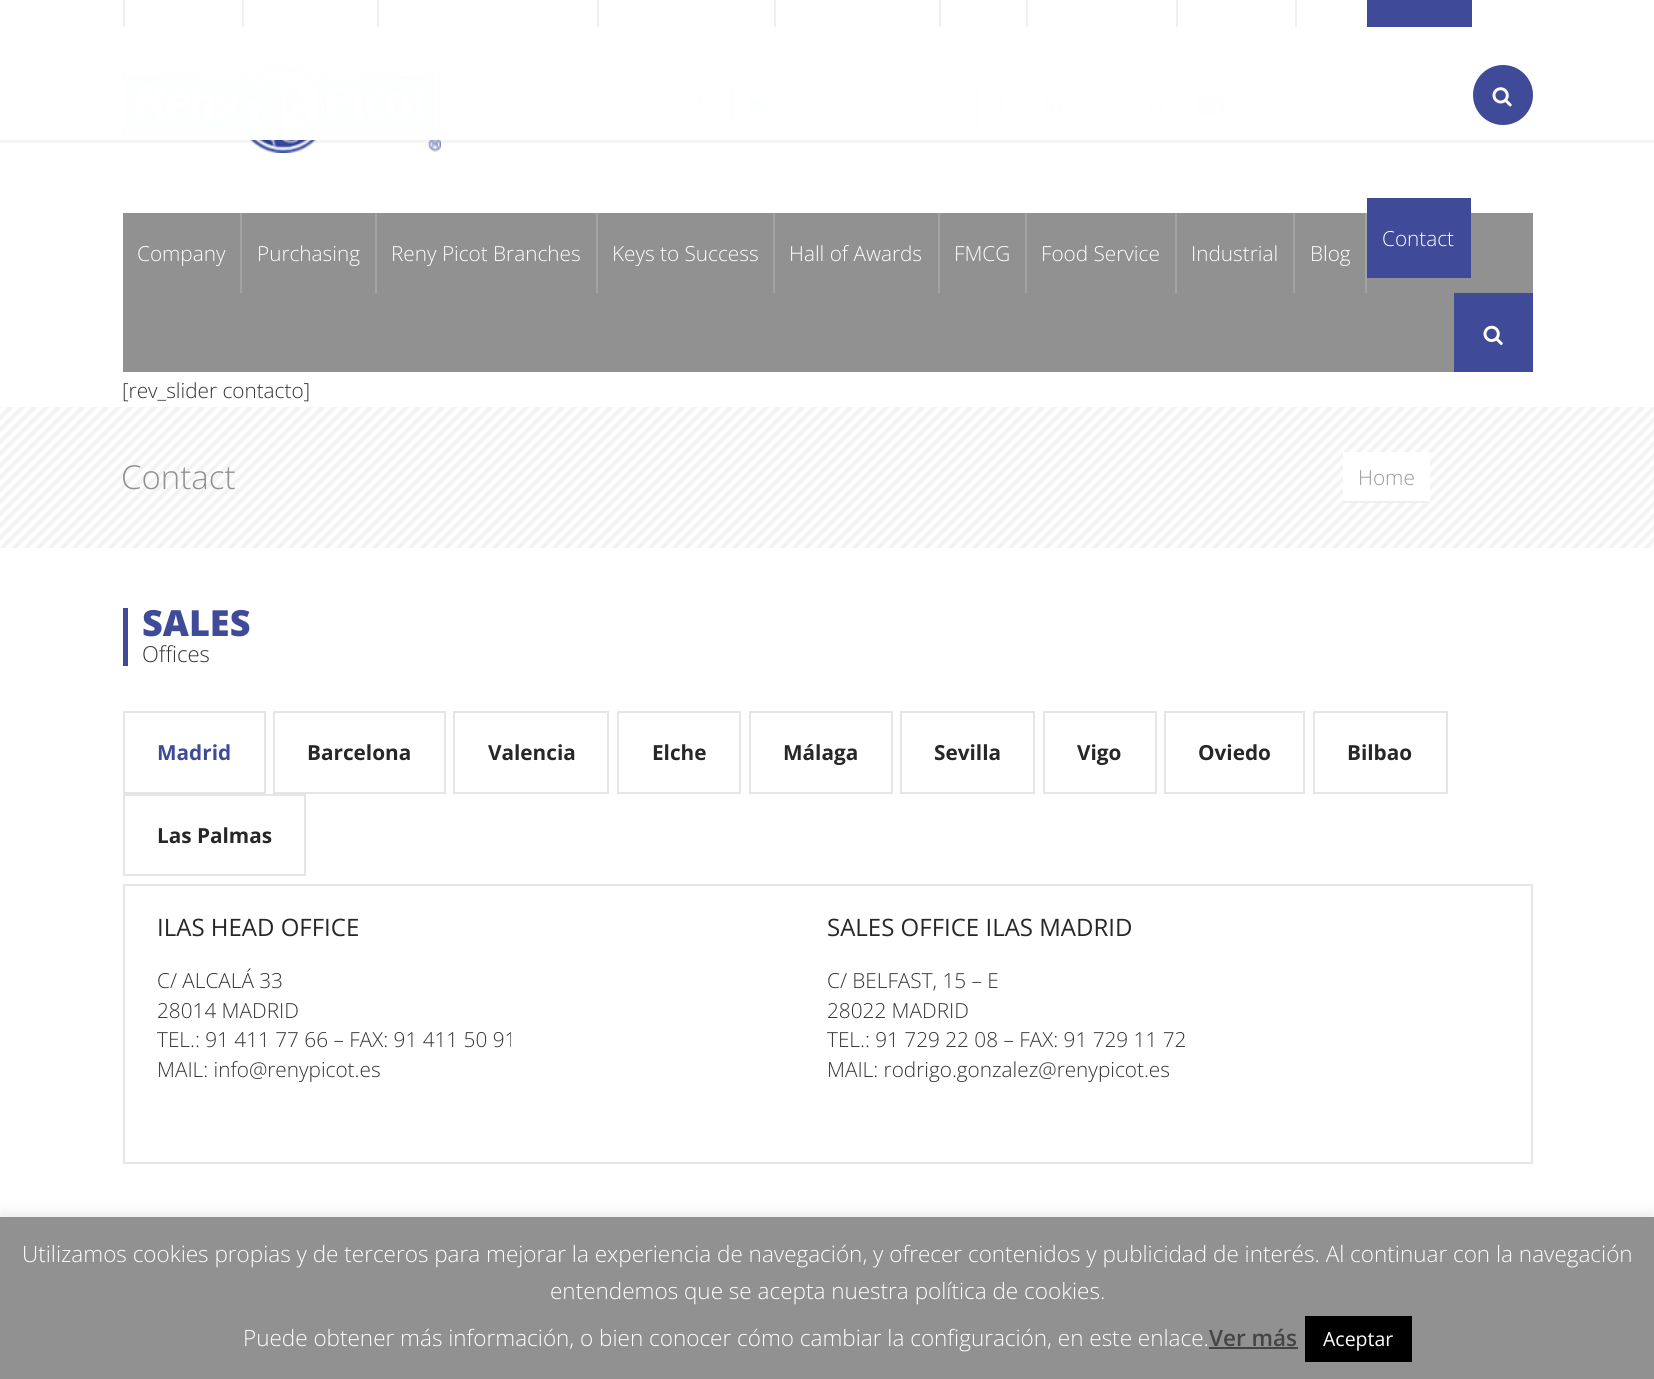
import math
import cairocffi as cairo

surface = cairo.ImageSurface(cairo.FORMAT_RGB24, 1654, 1379)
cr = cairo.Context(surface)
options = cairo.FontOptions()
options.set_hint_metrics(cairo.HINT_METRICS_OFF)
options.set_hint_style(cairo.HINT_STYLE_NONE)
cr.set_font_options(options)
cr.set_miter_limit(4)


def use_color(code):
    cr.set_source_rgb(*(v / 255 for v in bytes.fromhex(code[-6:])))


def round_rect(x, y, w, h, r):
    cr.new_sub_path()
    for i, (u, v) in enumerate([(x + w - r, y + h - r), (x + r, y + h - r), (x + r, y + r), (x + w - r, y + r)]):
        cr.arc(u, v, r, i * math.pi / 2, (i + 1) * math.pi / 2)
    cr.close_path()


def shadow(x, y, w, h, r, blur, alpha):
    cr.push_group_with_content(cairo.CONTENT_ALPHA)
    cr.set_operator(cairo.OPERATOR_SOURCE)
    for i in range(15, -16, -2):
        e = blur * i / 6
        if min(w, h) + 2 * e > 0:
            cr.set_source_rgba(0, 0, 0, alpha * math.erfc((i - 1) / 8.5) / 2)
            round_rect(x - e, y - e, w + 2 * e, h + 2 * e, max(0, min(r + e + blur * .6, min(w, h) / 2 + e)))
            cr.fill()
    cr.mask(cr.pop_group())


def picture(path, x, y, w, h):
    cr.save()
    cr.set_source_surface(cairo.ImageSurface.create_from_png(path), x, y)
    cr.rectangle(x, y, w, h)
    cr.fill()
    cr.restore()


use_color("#ffffff")
cr.paint()
picture("img2.png", 122, 60, 319, 93)
cr.set_source_rgba(0.196, 0.196, 0.196, 0.05)
cr.new_path()
cr.move_to(0, 140)
cr.line_to(0, 143)
cr.line_to(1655, 143)
cr.line_to(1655, -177)
cr.line_to(1654, -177)
cr.line_to(1654, 140)
cr.close_path()
cr.fill()
use_color("#919191")
cr.rectangle(731, 122, 1, 6)
cr.fill()
picture("img3.png", 697, 96, 17, 17)
cr.rectangle(731, 83, 2, 39)
cr.fill()
picture("img4.png", 747, 97, 21, 17)
cr.rectangle(977, 83, 2, 45)
cr.fill()
picture("img5.png", 997, 94, 11, 20)
cr.rectangle(1028, 83, 2, 45)
cr.fill()
picture("img6.png", 1044, 96, 18, 18)
cr.rectangle(1079, 83, 2, 45)
cr.fill()
picture("img7.png", 1095, 96, 18, 18)
cr.rectangle(1130, 83, 2, 45)
cr.fill()
picture("img8.png", 1147, 96, 17, 17)
picture("img9.png", 1196, 96, 28, 19)
cr.set_source_rgba(1, 1, 1, 0.99)
cr.rectangle(122, 60, 1102, 80)
cr.fill()
use_color("#f0f0f0")
cr.rectangle(123, 0, 2, 27)
cr.fill()
cr.rectangle(242, 0, 2, 27)
cr.fill()
cr.rectangle(377, 0, 2, 27)
cr.fill()
cr.rectangle(597, 0, 2, 27)
cr.fill()
cr.rectangle(774, 0, 2, 27)
cr.fill()
cr.rectangle(939, 0, 2, 27)
cr.fill()
cr.rectangle(1026, 0, 2, 27)
cr.fill()
cr.rectangle(1176, 0, 2, 27)
cr.fill()
cr.rectangle(1295, 0, 2, 27)
cr.fill()
use_color("#3f4b98")
cr.rectangle(1367, 0, 105, 27)
cr.fill()
cr.arc(1503, 95, 30, 0, 2 * math.pi)
cr.fill()
picture("img1.png", 1492, 87, 20, 20)
use_color("#919191")
cr.rectangle(123, 213, 1410, 159)
cr.fill()
use_color("#3f4b98")
cr.rectangle(1367, 198, 104, 80)
cr.fill()
cr.select_font_face("Open Sans Light")
cr.set_font_size(20.75)
use_color("#ffffff")
cr.move_to(1382, 246)
cr.show_text("Contact")
use_color("#a3a3a3")
cr.rectangle(240, 213, 2, 80)
cr.fill()
use_color("#ffffff")
cr.move_to(137, 261)
cr.show_text("Company")
use_color("#a3a3a3")
cr.rectangle(375, 213, 2, 80)
cr.fill()
use_color("#ffffff")
cr.move_to(257, 261)
cr.show_text("Purchasing")
use_color("#a3a3a3")
cr.rectangle(596, 213, 2, 80)
cr.fill()
use_color("#ffffff")
cr.move_to(391, 261)
cr.show_text("Reny Picot Branches")
use_color("#a3a3a3")
cr.rectangle(773, 213, 2, 80)
cr.fill()
use_color("#ffffff")
cr.move_to(612, 261)
cr.show_text("Keys to Success")
use_color("#a3a3a3")
cr.rectangle(938, 213, 2, 80)
cr.fill()
use_color("#ffffff")
cr.move_to(789, 261)
cr.show_text("Hall of Awards")
use_color("#a3a3a3")
cr.rectangle(1025, 213, 2, 80)
cr.fill()
use_color("#ffffff")
cr.move_to(954, 261)
cr.show_text("FMCG")
use_color("#a3a3a3")
cr.rectangle(1175, 213, 2, 80)
cr.fill()
use_color("#ffffff")
cr.move_to(1041, 261)
cr.show_text("Food Service")
use_color("#a3a3a3")
cr.rectangle(1293, 213, 2, 80)
cr.fill()
use_color("#ffffff")
cr.move_to(1191, 261)
cr.show_text("Industrial")
use_color("#a3a3a3")
cr.rectangle(1365, 213, 2, 80)
cr.fill()
use_color("#ffffff")
cr.move_to(1310, 261)
cr.show_text("Blog")
use_color("#3f4b98")
cr.rectangle(1454, 293, 79, 79)
cr.fill()
picture("img10.png", 1483, 325, 20, 20)
use_color("#333333")
cr.move_to(122, 398)
cr.show_text("[rev_slider contacto]")
picture("img11.png", 0, 407, 1654, 141)
cr.set_font_size(33)
use_color("#919191")
cr.move_to(121, 489)
cr.show_text("Contact")
use_color("#ffffff")
cr.rectangle(1343, 452, 87, 49)
cr.fill()
use_color("#f0f0f0")
cr.rectangle(1343, 501, 87, 2)
cr.fill()
cr.set_font_size(20.75)
use_color("#999999")
cr.move_to(1358, 485)
cr.show_text("Home")
use_color("#3f4b98")
cr.rectangle(123, 608, 5, 58)
cr.fill()
cr.select_font_face("Open Sans ExtraBold")
cr.set_font_size(36)
cr.move_to(142, 636)
cr.show_text("SALES")
cr.select_font_face("Open Sans Light")
cr.set_font_size(22)
use_color("#333333")
cr.move_to(142, 662)
cr.show_text("Offices")
cr.rectangle(124, 712, 141, 81)
use_color("#e5e5e5")
cr.stroke()
cr.select_font_face("Open Sans", cairo.FONT_SLANT_NORMAL, cairo.FONT_WEIGHT_BOLD)
cr.set_font_size(20.75)
use_color("#3f4b98")
cr.move_to(157, 760)
cr.show_text("Madrid")
cr.rectangle(274, 712, 171, 81)
use_color("#e5e5e5")
cr.stroke()
use_color("#272727")
cr.move_to(307, 760)
cr.show_text("Barcelona")
cr.rectangle(454, 712, 154, 81)
use_color("#e5e5e5")
cr.stroke()
use_color("#272727")
cr.move_to(488, 760)
cr.show_text("Valencia")
cr.rectangle(618, 712, 122, 81)
use_color("#e5e5e5")
cr.stroke()
use_color("#272727")
cr.move_to(652, 760)
cr.show_text("Elche")
cr.rectangle(750, 712, 142, 81)
use_color("#e5e5e5")
cr.stroke()
use_color("#272727")
cr.move_to(783, 760)
cr.show_text("Málaga")
cr.rectangle(901, 712, 133, 81)
use_color("#e5e5e5")
cr.stroke()
use_color("#272727")
cr.move_to(934, 760)
cr.show_text("Sevilla")
cr.rectangle(1044, 712, 112, 81)
use_color("#e5e5e5")
cr.stroke()
use_color("#272727")
cr.move_to(1077, 760)
cr.show_text("Vigo")
cr.rectangle(1165, 712, 139, 81)
use_color("#e5e5e5")
cr.stroke()
use_color("#272727")
cr.move_to(1198, 760)
cr.show_text("Oviedo")
cr.rectangle(1314, 712, 133, 81)
use_color("#e5e5e5")
cr.stroke()
use_color("#272727")
cr.move_to(1347, 760)
cr.show_text("Bilbao")
cr.rectangle(124, 795, 181, 80)
use_color("#e5e5e5")
cr.stroke()
use_color("#272727")
cr.move_to(157, 843)
cr.show_text("Las Palmas")
cr.rectangle(124, 885, 1408, 278)
use_color("#e5e5e5")
cr.stroke()
cr.select_font_face("Open Sans")
cr.set_font_size(24)
use_color("#272727")
cr.move_to(157, 936)
cr.show_text("ILAS HEAD OFFICE")
cr.select_font_face("Open Sans Light")
cr.set_font_size(20.75)
use_color("#333333")
cr.move_to(157, 988)
cr.show_text("C/ ALCALÁ 33")
cr.move_to(157, 1018)
cr.show_text("28014 MADRID")
cr.move_to(157, 1047)
cr.show_text("TEL.: 91 411 77 66 – FAX: 91 411 50 91")
cr.move_to(157, 1077)
cr.show_text("MAIL: info@renypicot.es")
cr.select_font_face("Open Sans")
cr.set_font_size(24)
use_color("#272727")
cr.move_to(827, 936)
cr.show_text("SALES OFFICE ILAS MADRID")
cr.select_font_face("Open Sans Light")
cr.set_font_size(20.75)
use_color("#333333")
cr.move_to(827, 988)
cr.show_text("C/ BELFAST, 15 – E")
cr.move_to(827, 1018)
cr.show_text("28022 MADRID")
cr.move_to(827, 1047)
cr.show_text("TEL.: 91 729 22 08 – FAX: 91 729 11 72")
cr.move_to(827, 1077)
cr.show_text("MAIL: rodrigo.gonzalez@renypicot.es")
use_color("#acabab")
shadow(0, 1215, 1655, 164, 0, 7.5, 0.3)
use_color("#919191")
cr.rectangle(0, 1217, 1654, 162)
cr.fill()
cr.set_font_size(22.5)
use_color("#ffffff")
cr.move_to(22, 1262)
cr.show_text("Utilizamos cookies propias y de terceros para mejorar la experiencia de navegación, y ofrecer contenidos y publicidad de interés. Al continuar con la navegación")
cr.move_to(550, 1299)
cr.show_text("entendemos que se acepta nuestra política de cookies.")
cr.move_to(243, 1346)
cr.show_text("Puede obtener más información, o bien conocer cómo cambiar la configuración, en este enlace.")
cr.select_font_face("Open Sans SemiBold")
use_color("#444444")
cr.move_to(1209, 1346)
cr.show_text("Ver más")
cr.rectangle(1209, 1347, 89, 2)
cr.fill()
use_color("#000000")
cr.rectangle(1305, 1316, 107, 46)
cr.fill()
cr.select_font_face("Open Sans")
cr.set_font_size(19.5)
use_color("#ffffff")
cr.move_to(1323, 1346)
cr.show_text("Aceptar")
surface.write_to_png("result.png")
